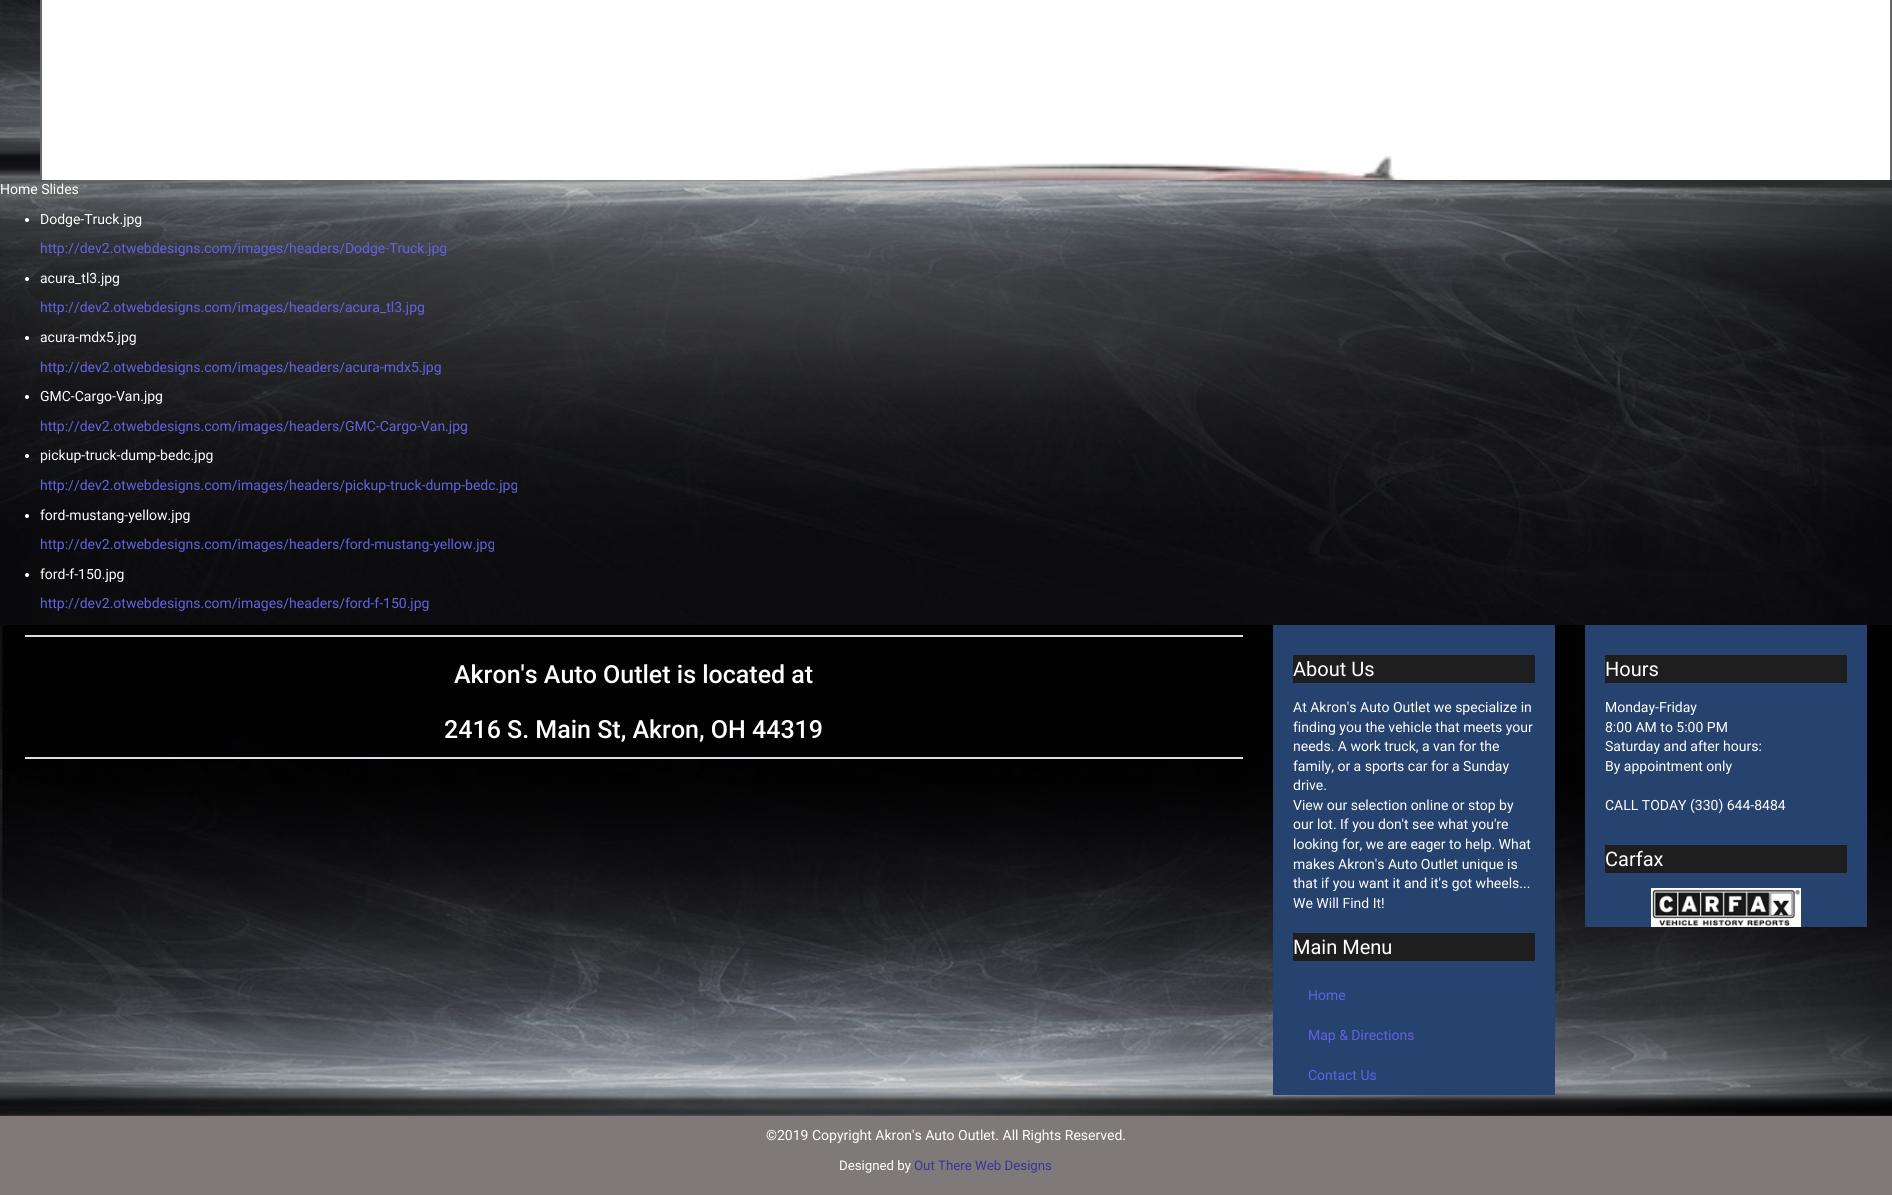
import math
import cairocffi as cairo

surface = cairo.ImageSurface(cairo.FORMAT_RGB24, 1892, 1195)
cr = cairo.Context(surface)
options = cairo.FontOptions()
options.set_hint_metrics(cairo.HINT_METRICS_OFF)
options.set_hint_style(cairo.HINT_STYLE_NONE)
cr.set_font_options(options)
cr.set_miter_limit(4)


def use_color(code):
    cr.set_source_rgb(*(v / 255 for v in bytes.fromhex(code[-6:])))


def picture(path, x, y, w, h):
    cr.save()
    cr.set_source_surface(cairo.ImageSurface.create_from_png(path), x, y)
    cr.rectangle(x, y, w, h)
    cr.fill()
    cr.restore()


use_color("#ffffff")
cr.paint()
picture("img1.png", 0, 0, 1892, 625)
use_color("#666666")
cr.rectangle(40, 0, 1852, 180)
cr.fill()
picture("img2.png", 42, 0, 1848, 180)
cr.select_font_face("Roboto")
cr.set_font_size(14)
use_color("#ffffff")
cr.move_to(0, 194)
cr.show_text("Home Slides")
cr.new_path()
cr.arc(27, 220, 2, 0, 2 * math.pi)
cr.fill()
cr.move_to(40, 224)
cr.show_text("Dodge-Truck.jpg")
use_color("#6262df")
cr.move_to(40, 253)
cr.show_text("http://dev2.otwebdesigns.com/images/headers/Dodge-Truck.jpg")
use_color("#ffffff")
cr.new_path()
cr.arc(27, 279, 2, 0, 2 * math.pi)
cr.fill()
cr.move_to(40, 283)
cr.show_text("acura_tl3.jpg")
use_color("#6262df")
cr.move_to(40, 312)
cr.show_text("http://dev2.otwebdesigns.com/images/headers/acura_tl3.jpg")
use_color("#ffffff")
cr.new_path()
cr.arc(27, 338, 2, 0, 2 * math.pi)
cr.fill()
cr.move_to(40, 342)
cr.show_text("acura-mdx5.jpg")
use_color("#6262df")
cr.move_to(40, 372)
cr.show_text("http://dev2.otwebdesigns.com/images/headers/acura-mdx5.jpg")
use_color("#ffffff")
cr.new_path()
cr.arc(27, 397, 2, 0, 2 * math.pi)
cr.fill()
cr.move_to(40, 401)
cr.show_text("GMC-Cargo-Van.jpg")
use_color("#6262df")
cr.move_to(40, 431)
cr.show_text("http://dev2.otwebdesigns.com/images/headers/GMC-Cargo-Van.jpg")
use_color("#ffffff")
cr.new_path()
cr.arc(27, 456, 2, 0, 2 * math.pi)
cr.fill()
cr.move_to(40, 460)
cr.show_text("pickup-truck-dump-bedc.jpg")
use_color("#6262df")
cr.move_to(40, 490)
cr.show_text("http://dev2.otwebdesigns.com/images/headers/pickup-truck-dump-bedc.jpg")
use_color("#ffffff")
cr.new_path()
cr.arc(27, 516, 2, 0, 2 * math.pi)
cr.fill()
cr.move_to(40, 520)
cr.show_text("ford-mustang-yellow.jpg")
use_color("#6262df")
cr.move_to(40, 549)
cr.show_text("http://dev2.otwebdesigns.com/images/headers/ford-mustang-yellow.jpg")
use_color("#ffffff")
cr.new_path()
cr.arc(27, 575, 2, 0, 2 * math.pi)
cr.fill()
cr.move_to(40, 579)
cr.show_text("ford-f-150.jpg")
use_color("#6262df")
cr.move_to(40, 608)
cr.show_text("http://dev2.otwebdesigns.com/images/headers/ford-f-150.jpg")
picture("img3.png", 0, 625, 1892, 491)
use_color("#e0dede")
cr.rectangle(25, 635, 1218, 2)
cr.fill()
cr.select_font_face("Roboto Medium")
cr.set_font_size(25)
use_color("#ffffff")
cr.move_to(454, 683)
cr.show_text("Akron's Auto Outlet is located at")
cr.move_to(444, 738)
cr.show_text("2416 S. Main St, Akron, OH 44319")
use_color("#e0dede")
cr.rectangle(25, 757, 1218, 2)
cr.fill()
use_color("#26426e")
cr.rectangle(1273, 625, 282, 470)
cr.fill()
use_color("#1e1e1e")
cr.rectangle(1293, 655, 242, 28)
cr.fill()
cr.select_font_face("Roboto")
cr.set_font_size(20)
use_color("#ffffff")
cr.move_to(1293, 676)
cr.show_text("About Us")
cr.set_font_size(14)
cr.move_to(1293, 712)
cr.show_text("At Akron's Auto Outlet we specialize in")
cr.move_to(1293, 732)
cr.show_text("finding you the vehicle that meets your")
cr.move_to(1293, 751)
cr.show_text("needs. A work truck, a van for the")
cr.move_to(1293, 771)
cr.show_text("family, or a sports car for a Sunday")
cr.move_to(1293, 790)
cr.show_text("drive.")
cr.move_to(1293, 810)
cr.show_text("View our selection online or stop by")
cr.move_to(1293, 829)
cr.show_text("our lot. If you don't see what you're")
cr.move_to(1293, 849)
cr.show_text("looking for, we are eager to help. What")
cr.move_to(1293, 869)
cr.show_text("makes Akron's Auto Outlet unique is")
cr.move_to(1293, 888)
cr.show_text("that if you want it and it's got wheels...")
cr.move_to(1293, 908)
cr.show_text("We Will Find It!")
use_color("#1e1e1e")
cr.rectangle(1293, 933, 242, 28)
cr.fill()
cr.set_font_size(20)
use_color("#ffffff")
cr.move_to(1293, 954)
cr.show_text("Main Menu")
cr.set_font_size(14)
use_color("#6262df")
cr.move_to(1308, 1000)
cr.show_text("Home")
cr.move_to(1308, 1040)
cr.show_text("Map & Directions")
cr.move_to(1308, 1080)
cr.show_text("Contact Us")
use_color("#26426e")
cr.rectangle(1585, 625, 282, 302)
cr.fill()
use_color("#1e1e1e")
cr.rectangle(1605, 655, 242, 28)
cr.fill()
cr.set_font_size(20)
use_color("#ffffff")
cr.move_to(1605, 676)
cr.show_text("Hours")
cr.set_font_size(14)
cr.move_to(1605, 712)
cr.show_text("Monday-Friday")
cr.move_to(1605, 732)
cr.show_text("8:00 AM to 5:00 PM")
cr.move_to(1605, 751)
cr.show_text("Saturday and after hours:")
cr.move_to(1605, 771)
cr.show_text("By appointment only")
cr.move_to(1605, 810)
cr.show_text("CALL TODAY (330) 644-8484")
use_color("#1e1e1e")
cr.rectangle(1605, 845, 242, 28)
cr.fill()
cr.set_font_size(20)
use_color("#ffffff")
cr.move_to(1605, 866)
cr.show_text("Carfax")
picture("img4.png", 1651, 888, 150, 39)
use_color("#807979")
cr.rectangle(0, 1116, 1892, 79)
cr.fill()
cr.set_font_size(14)
use_color("#ffffff")
cr.move_to(766, 1140)
cr.show_text("©2019 Copyright Akron's Auto Outlet. All Rights Reserved.")
cr.set_font_size(13.25)
cr.move_to(839, 1170)
cr.show_text("Designed by")
use_color("#3a349a")
cr.move_to(914, 1170)
cr.show_text("Out There Web Designs")
surface.write_to_png("result.png")
